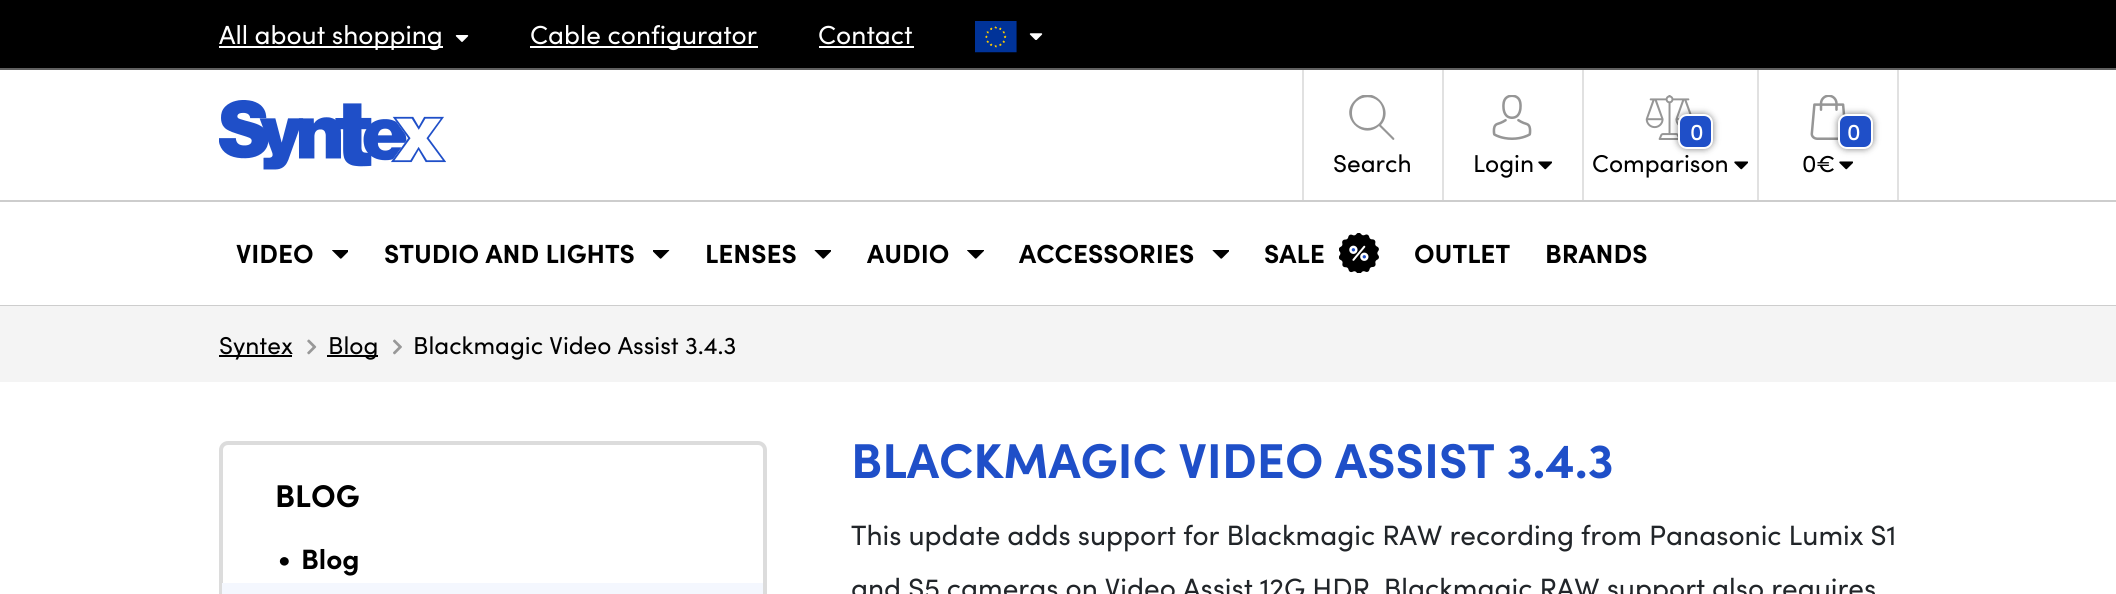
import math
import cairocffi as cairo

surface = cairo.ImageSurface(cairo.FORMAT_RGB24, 2116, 594)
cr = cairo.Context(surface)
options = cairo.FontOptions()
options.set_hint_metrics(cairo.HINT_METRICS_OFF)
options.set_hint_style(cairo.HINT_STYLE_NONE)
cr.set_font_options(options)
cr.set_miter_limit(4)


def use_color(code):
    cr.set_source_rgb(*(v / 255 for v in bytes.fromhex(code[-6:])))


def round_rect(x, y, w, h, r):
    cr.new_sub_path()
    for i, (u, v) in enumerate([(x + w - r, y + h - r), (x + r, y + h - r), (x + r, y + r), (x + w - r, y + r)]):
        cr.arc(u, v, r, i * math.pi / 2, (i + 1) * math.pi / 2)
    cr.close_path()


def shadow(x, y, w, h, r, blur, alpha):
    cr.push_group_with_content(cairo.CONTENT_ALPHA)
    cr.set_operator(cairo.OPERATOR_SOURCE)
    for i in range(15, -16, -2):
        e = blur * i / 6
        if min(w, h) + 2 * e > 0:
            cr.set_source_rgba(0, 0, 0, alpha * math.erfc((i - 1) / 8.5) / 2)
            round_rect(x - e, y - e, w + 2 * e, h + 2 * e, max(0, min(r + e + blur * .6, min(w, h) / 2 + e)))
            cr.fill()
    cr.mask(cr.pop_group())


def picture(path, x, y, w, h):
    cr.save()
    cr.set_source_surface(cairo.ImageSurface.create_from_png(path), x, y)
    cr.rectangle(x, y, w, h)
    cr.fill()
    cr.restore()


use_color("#ffffff")
cr.paint()
use_color("#000000")
cr.rectangle(0, 0, 2116, 68)
cr.fill()
use_color("#606060")
cr.rectangle(0, 68, 2116, 2)
cr.fill()
picture("img1.png", 455, 35, 14, 7)
use_color("#ffffff")
cr.rectangle(219, 46, 224, 2)
cr.fill()
cr.select_font_face("Sofia")
cr.set_font_size(26.25)
cr.move_to(219, 44)
cr.show_text("All about shopping")
cr.rectangle(530, 46, 228, 2)
cr.fill()
cr.move_to(530, 44)
cr.show_text("Cable configurator")
cr.move_to(818, 44)
cr.show_text("Contact")
cr.rectangle(819, 46, 95, 2)
cr.fill()
picture("img2.png", 1029, 33, 14, 7)
picture("img3.png", 975, 21, 42, 32)
use_color("#cdcdcd")
cr.rectangle(0, 305, 2116, 1)
cr.fill()
picture("img4.png", 219, 100, 227, 70)
use_color("#e1e1e1")
cr.rectangle(1302, 70, 2, 130)
cr.fill()
cr.rectangle(1442, 70, 2, 130)
cr.fill()
cr.save()
cr.rectangle(1346, 95, 52, 45)
cr.clip()
use_color("#969696")
cr.new_path()
cr.move_to(1394, 138)
cr.line_to(1381, 125)
cr.curve_to(1396, 108, 1371, 83, 1355, 100)
cr.curve_to(1338, 116, 1362, 141, 1379, 126)
cr.line_to(1393, 140)
cr.curve_to(1394, 140, 1395, 139, 1394, 138)
cr.close_path()
cr.move_to(1352, 113)
cr.curve_to(1352, 92, 1383, 92, 1383, 113)
cr.curve_to(1383, 133, 1352, 133, 1352, 113)
cr.close_path()
cr.fill()
cr.restore()
cr.set_font_size(24.5)
use_color("#000000")
cr.move_to(1333, 172)
cr.show_text("Search")
use_color("#e1e1e1")
cr.rectangle(1582, 70, 2, 130)
cr.fill()
picture("img5.png", 1492, 95, 40, 45)
use_color("#000000")
cr.move_to(1473, 172)
cr.show_text("Login")
picture("img6.png", 1538, 161, 14, 9)
use_color("#e1e1e1")
cr.rectangle(1757, 70, 2, 130)
cr.fill()
picture("img7.png", 1645, 95, 47, 45)
use_color("#000000")
shadow(1678, 114, 35, 35, 9, 3.5, 0.5)
use_color("#1f4fc8")
round_rect(1679, 115, 33, 33, 8)
cr.fill_preserve()
use_color("#ffffff")
cr.stroke()
cr.select_font_face("Sofia Medium")
cr.set_font_size(23)
cr.move_to(1690, 140)
cr.show_text("0")
cr.select_font_face("Sofia")
cr.set_font_size(24.5)
use_color("#000000")
cr.move_to(1592, 172)
cr.show_text("Comparison")
picture("img6.png", 1734, 161, 14, 9)
use_color("#e1e1e1")
cr.rectangle(1897, 70, 2, 130)
cr.fill()
picture("img8.png", 1810, 95, 36, 45)
use_color("#000000")
shadow(1838, 114, 35, 35, 9, 3.5, 0.5)
use_color("#1f4fc8")
round_rect(1839, 115, 33, 33, 8)
cr.fill_preserve()
use_color("#ffffff")
cr.stroke()
cr.select_font_face("Sofia Medium")
cr.set_font_size(23)
cr.move_to(1847, 140)
cr.show_text("0")
cr.select_font_face("Sofia")
cr.set_font_size(24.5)
use_color("#000000")
cr.move_to(1802, 172)
cr.show_text("0€")
picture("img6.png", 1839, 161, 14, 9)
use_color("#cdcdcd")
cr.rectangle(0, 200, 2116, 2)
cr.fill()
cr.select_font_face("Sofia", cairo.FONT_SLANT_NORMAL, cairo.FONT_WEIGHT_BOLD)
cr.set_font_size(26.25)
use_color("#000000")
cr.move_to(236, 263)
cr.show_text("VIDEO")
picture("img9.png", 332, 250, 16, 9)
cr.move_to(384, 263)
cr.show_text("STUDIO AND LIGHTS")
picture("img10.png", 653, 250, 17, 9)
cr.move_to(705, 263)
cr.show_text("LENSES")
picture("img11.png", 814, 250, 17, 9)
cr.move_to(867, 263)
cr.show_text("AUDIO")
picture("img12.png", 967, 250, 17, 9)
cr.move_to(1019, 263)
cr.show_text("ACCESSORIES")
picture("img13.png", 1212, 250, 17, 9)
cr.move_to(1264, 263)
cr.show_text("SALE")
picture("img14.png", 1339, 233, 40, 40)
cr.move_to(1414, 263)
cr.show_text("OUTLET")
cr.move_to(1545, 263)
cr.show_text("BRANDS")
use_color("#f4f4f4")
cr.rectangle(0, 306, 2116, 76)
cr.fill()
use_color("#000000")
cr.rectangle(219, 355, 73, 2)
cr.fill()
cr.select_font_face("Sofia")
cr.set_font_size(24.5)
cr.move_to(219, 354)
cr.show_text("Syntex")
picture("img15.png", 307, 339, 10, 16)
cr.rectangle(327, 355, 51, 2)
cr.fill()
cr.move_to(328, 354)
cr.show_text("Blog")
picture("img16.png", 393, 339, 9, 16)
cr.move_to(413, 354)
cr.show_text("Blackmagic Video Assist 3.4.3")
cr.select_font_face("Sofia", cairo.FONT_SLANT_NORMAL, cairo.FONT_WEIGHT_BOLD)
cr.set_font_size(49)
use_color("#1f4fc8")
cr.move_to(851, 478)
cr.show_text("BLACKMAGIC VIDEO ASSIST 3.4.3")
round_rect(221, 443, 544, 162, 7)
use_color("#dcdcdc")
cr.set_line_width(4)
cr.stroke()
cr.set_font_size(31.5)
use_color("#000000")
cr.move_to(275, 507)
cr.show_text("BLOG")
cr.set_font_size(28)
cr.move_to(278, 568)
cr.show_text("•")
cr.move_to(301, 569)
cr.show_text("Blog")
use_color("#f4f7fe")
cr.rectangle(222, 583, 541, 11)
cr.fill()
cr.select_font_face("Sofia")
use_color("#212529")
cr.move_to(851, 545)
cr.show_text("This update adds support for Blackmagic RAW recording from Panasonic Lumix S1")
cr.move_to(851, 598)
cr.show_text("and S5 cameras on Video Assist 12G HDR. Blackmagic RAW support also requires")
surface.write_to_png("result.png")
